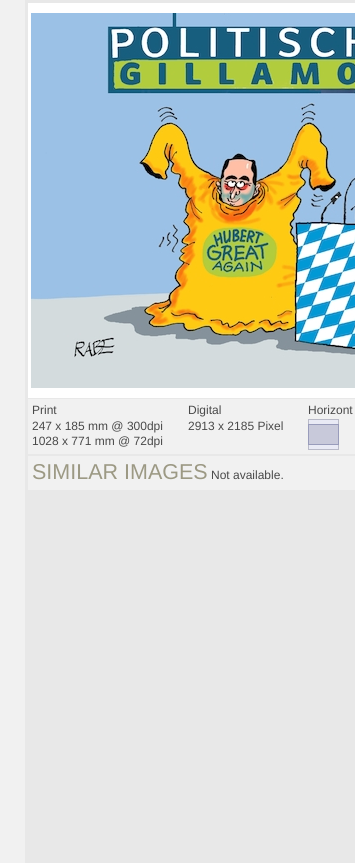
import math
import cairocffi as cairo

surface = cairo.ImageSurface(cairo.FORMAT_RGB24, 355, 863)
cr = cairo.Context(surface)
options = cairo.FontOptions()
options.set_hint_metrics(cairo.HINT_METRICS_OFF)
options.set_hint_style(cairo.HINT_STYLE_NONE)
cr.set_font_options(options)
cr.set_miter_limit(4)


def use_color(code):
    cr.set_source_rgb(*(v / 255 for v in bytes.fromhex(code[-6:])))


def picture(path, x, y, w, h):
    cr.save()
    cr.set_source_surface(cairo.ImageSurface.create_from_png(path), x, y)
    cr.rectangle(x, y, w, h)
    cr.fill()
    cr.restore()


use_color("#f1f1f1")
cr.paint()
use_color("#e8e8e8")
cr.rectangle(25, 0, 330, 863)
cr.fill()
use_color("#ffffff")
cr.rectangle(28, 3, 327, 395)
cr.fill()
picture("img1.png", 31, 13, 324, 375)
use_color("#f1f1f1")
cr.rectangle(28, 399, 327, 55)
cr.fill()
cr.select_font_face("Liberation Sans")
cr.set_font_size(12)
use_color("#494949")
cr.move_to(32, 414)
cr.show_text("Print")
cr.move_to(32, 430)
cr.show_text("247 x 185 mm @ 300dpi")
cr.move_to(32, 445)
cr.show_text("1028 x 771 mm @ 72dpi")
cr.move_to(188, 414)
cr.show_text("Digital")
cr.move_to(188, 430)
cr.show_text("2913 x 2185 Pixel")
cr.move_to(308, 414)
cr.show_text("Horizont")
picture("img2.png", 308, 419, 31, 31)
use_color("#f1f1f1")
cr.rectangle(28, 456, 327, 34)
cr.fill()
cr.set_font_size(21.5)
use_color("#9c9984")
cr.move_to(32, 479)
cr.show_text("SIMILAR IMAGES")
cr.set_font_size(12)
use_color("#494949")
cr.move_to(211, 479)
cr.show_text("Not available.")
surface.write_to_png("result.png")
